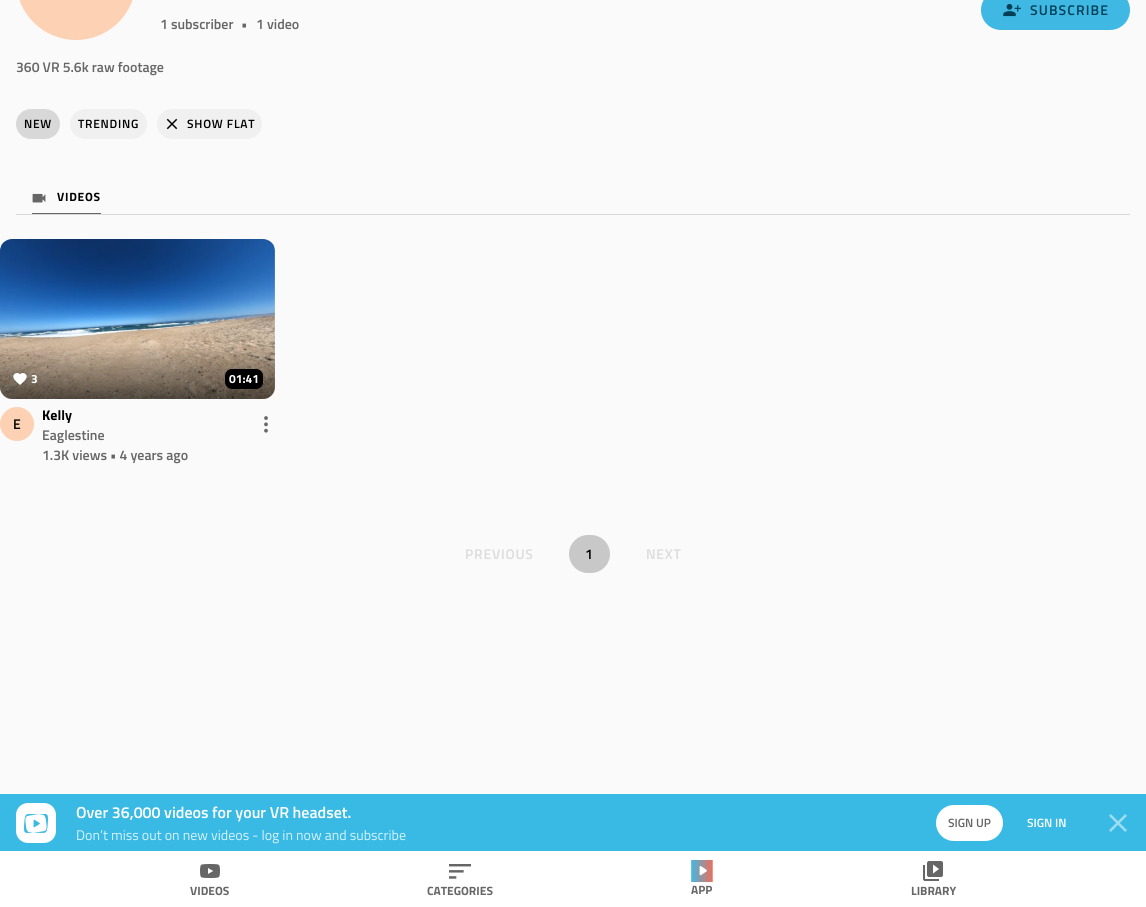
import math
import cairocffi as cairo

surface = cairo.ImageSurface(cairo.FORMAT_RGB24, 1146, 907)
cr = cairo.Context(surface)
options = cairo.FontOptions()
options.set_hint_metrics(cairo.HINT_METRICS_OFF)
options.set_hint_style(cairo.HINT_STYLE_NONE)
cr.set_font_options(options)
cr.set_miter_limit(4)


def use_color(code):
    cr.set_source_rgb(*(v / 255 for v in bytes.fromhex(code[-6:])))


def spaced_text(x, y, s, letter, word):
    cr.move_to(x, y)
    for ch in s:
        cr.show_text(ch)
        cr.rel_move_to(letter + word * (ch == ' '), 0)


def round_rect(x, y, w, h, r):
    cr.new_sub_path()
    for i, (u, v) in enumerate([(x + w - r, y + h - r), (x + r, y + h - r), (x + r, y + r), (x + w - r, y + r)]):
        cr.arc(u, v, r, i * math.pi / 2, (i + 1) * math.pi / 2)
    cr.close_path()


def picture(path, x, y, w, h):
    cr.save()
    cr.set_source_surface(cairo.ImageSurface.create_from_png(path), x, y)
    cr.rectangle(x, y, w, h)
    cr.fill()
    cr.restore()


use_color("#fafafa")
cr.paint()
use_color("#3fb8e3")
round_rect(981, -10, 149, 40, 20)
cr.fill()
picture("img1.png", 1003, 3, 18, 14)
cr.select_font_face("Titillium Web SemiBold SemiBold")
cr.set_font_size(14)
use_color("#004057")
spaced_text(1030, 15, "SUBSCRIBE", 1.1, 0)
use_color("#fdd1b3")
round_rect(16, -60, 120, 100, 60)
cr.fill()
use_color("#666666")
cr.move_to(160, 29)
cr.show_text("1 subscriber")
cr.move_to(241, 29)
cr.show_text("•")
cr.move_to(256, 29)
cr.show_text("1 video")
cr.move_to(16, 72)
cr.show_text("360 VR 5.6k raw footage")
use_color("#d8d8d8")
round_rect(16, 109, 44, 30, 15)
cr.fill()
cr.set_font_size(12)
use_color("#000000")
spaced_text(24, 128, "NEW", 0.75, 0)
use_color("#f0f0f0")
round_rect(70, 109, 77, 30, 15)
cr.fill()
use_color("#000000")
spaced_text(78, 128, "TRENDING", 0.75, 0)
use_color("#f0f0f0")
round_rect(157, 109, 105, 30, 15)
cr.fill()
picture("img2.png", 166, 118, 12, 12)
use_color("#000000")
spaced_text(187, 128, "SHOW FLAT", 0.75, 0)
use_color("#d8d8d8")
cr.rectangle(16, 214, 1114, 1)
cr.fill()
use_color("#666666")
cr.rectangle(32, 213, 69, 1)
cr.fill()
picture("img3.png", 32, 193, 14, 10)
cr.select_font_face("Titillium Web", cairo.FONT_SLANT_NORMAL, cairo.FONT_WEIGHT_BOLD)
use_color("#000000")
spaced_text(57, 201, "VIDEOS", 0.75, 0)
picture("img4.png", 0, 239, 275, 160)
gradient = cairo.LinearGradient(138, 399, 138, 335)
gradient.add_color_stop_rgba(0, 0, 0, 0, 0.6)
gradient.add_color_stop_rgba(0.85, 0, 0, 0, 0)
cr.set_source(gradient)
cr.new_path()
cr.move_to(0, 335)
cr.line_to(275, 335)
cr.line_to(275, 387)
cr.curve_to(275, 393.5, 269.5, 399, 263, 399)
cr.line_to(12, 399)
cr.curve_to(5.5, 399, 0, 393.5, 0, 387)
cr.close_path()
cr.fill()
picture("img5.png", 13, 373, 14, 12)
use_color("#ffffff")
cr.move_to(31, 383)
cr.show_text("3")
use_color("#000000")
round_rect(225, 369, 38, 20, 7)
cr.fill()
use_color("#ffffff")
cr.move_to(229, 383)
cr.show_text("01:41")
use_color("#fdd1b3")
cr.new_path()
cr.arc(17, 424, 17, 0, 2 * math.pi)
cr.fill()
cr.select_font_face("Titillium Web SemiBold SemiBold")
cr.set_font_size(14)
use_color("#000000")
cr.move_to(13, 429)
cr.show_text("E")
cr.select_font_face("Titillium Web", cairo.FONT_SLANT_NORMAL, cairo.FONT_WEIGHT_BOLD)
cr.move_to(42, 420)
cr.show_text("Kelly")
cr.save()
cr.rectangle(42, 427, 146, 16)
cr.clip()
cr.select_font_face("Titillium Web SemiBold SemiBold")
use_color("#666666")
cr.move_to(42, 440)
cr.show_text("Eaglestine")
cr.restore()
cr.select_font_face("Titillium Web SemiBold SemiBold")
use_color("#666666")
cr.move_to(42, 460)
cr.show_text("1.3K views • 4 years ago")
picture("img6.png", 264, 416, 4, 17)
use_color("#dcdcdc")
spaced_text(465, 559, "PREVIOUS", 0.75, 0)
use_color("#c8c8c8")
round_rect(569, 535, 41, 38, 19)
cr.fill()
use_color("#000000")
spaced_text(585, 559, "1", 0.75, 0)
use_color("#dcdcdc")
spaced_text(646, 559, "NEXT", 0.75, 0)
use_color("#ffffff")
cr.rectangle(0, 851, 1146, 56)
cr.fill()
picture("img7.png", 200, 864, 20, 14)
cr.select_font_face("Titillium Web", cairo.FONT_SLANT_NORMAL, cairo.FONT_WEIGHT_BOLD)
cr.set_font_size(12)
use_color("#666666")
cr.move_to(190, 895)
cr.show_text("VIDEOS")
picture("img8.png", 449, 864, 22, 15)
cr.move_to(427, 895)
cr.show_text("CATEGORIES")
picture("img9.png", 691, 860, 22, 22)
cr.move_to(691, 894)
cr.show_text("APP")
picture("img10.png", 923, 861, 20, 20)
cr.move_to(911, 895)
cr.show_text("LIBRARY")
use_color("#39bae5")
cr.rectangle(0, 794, 1146, 57)
cr.fill()
use_color("#ffffff")
round_rect(16, 803, 40, 40, 12)
cr.fill()
picture("img11.png", 24, 814, 24, 19)
cr.select_font_face("Titillium Web SemiBold SemiBold")
cr.set_font_size(16)
cr.move_to(76, 818)
cr.show_text("Over 36,000 videos for your VR headset.")
cr.select_font_face("Titillium Web")
cr.set_font_size(14)
use_color("#d7f1fa")
cr.move_to(76, 840)
cr.show_text("Don’t miss out on new videos - log in now and subscribe")
use_color("#ffffff")
round_rect(936, 805, 67, 36, 18)
cr.fill()
cr.select_font_face("Titillium Web SemiBold SemiBold")
cr.set_font_size(12)
use_color("#666666")
cr.move_to(948, 827)
cr.show_text("SIGN UP")
use_color("#ffffff")
cr.move_to(1027, 827)
cr.show_text("SIGN IN")
picture("img12.png", 1109, 814, 18, 18)
surface.write_to_png("result.png")
